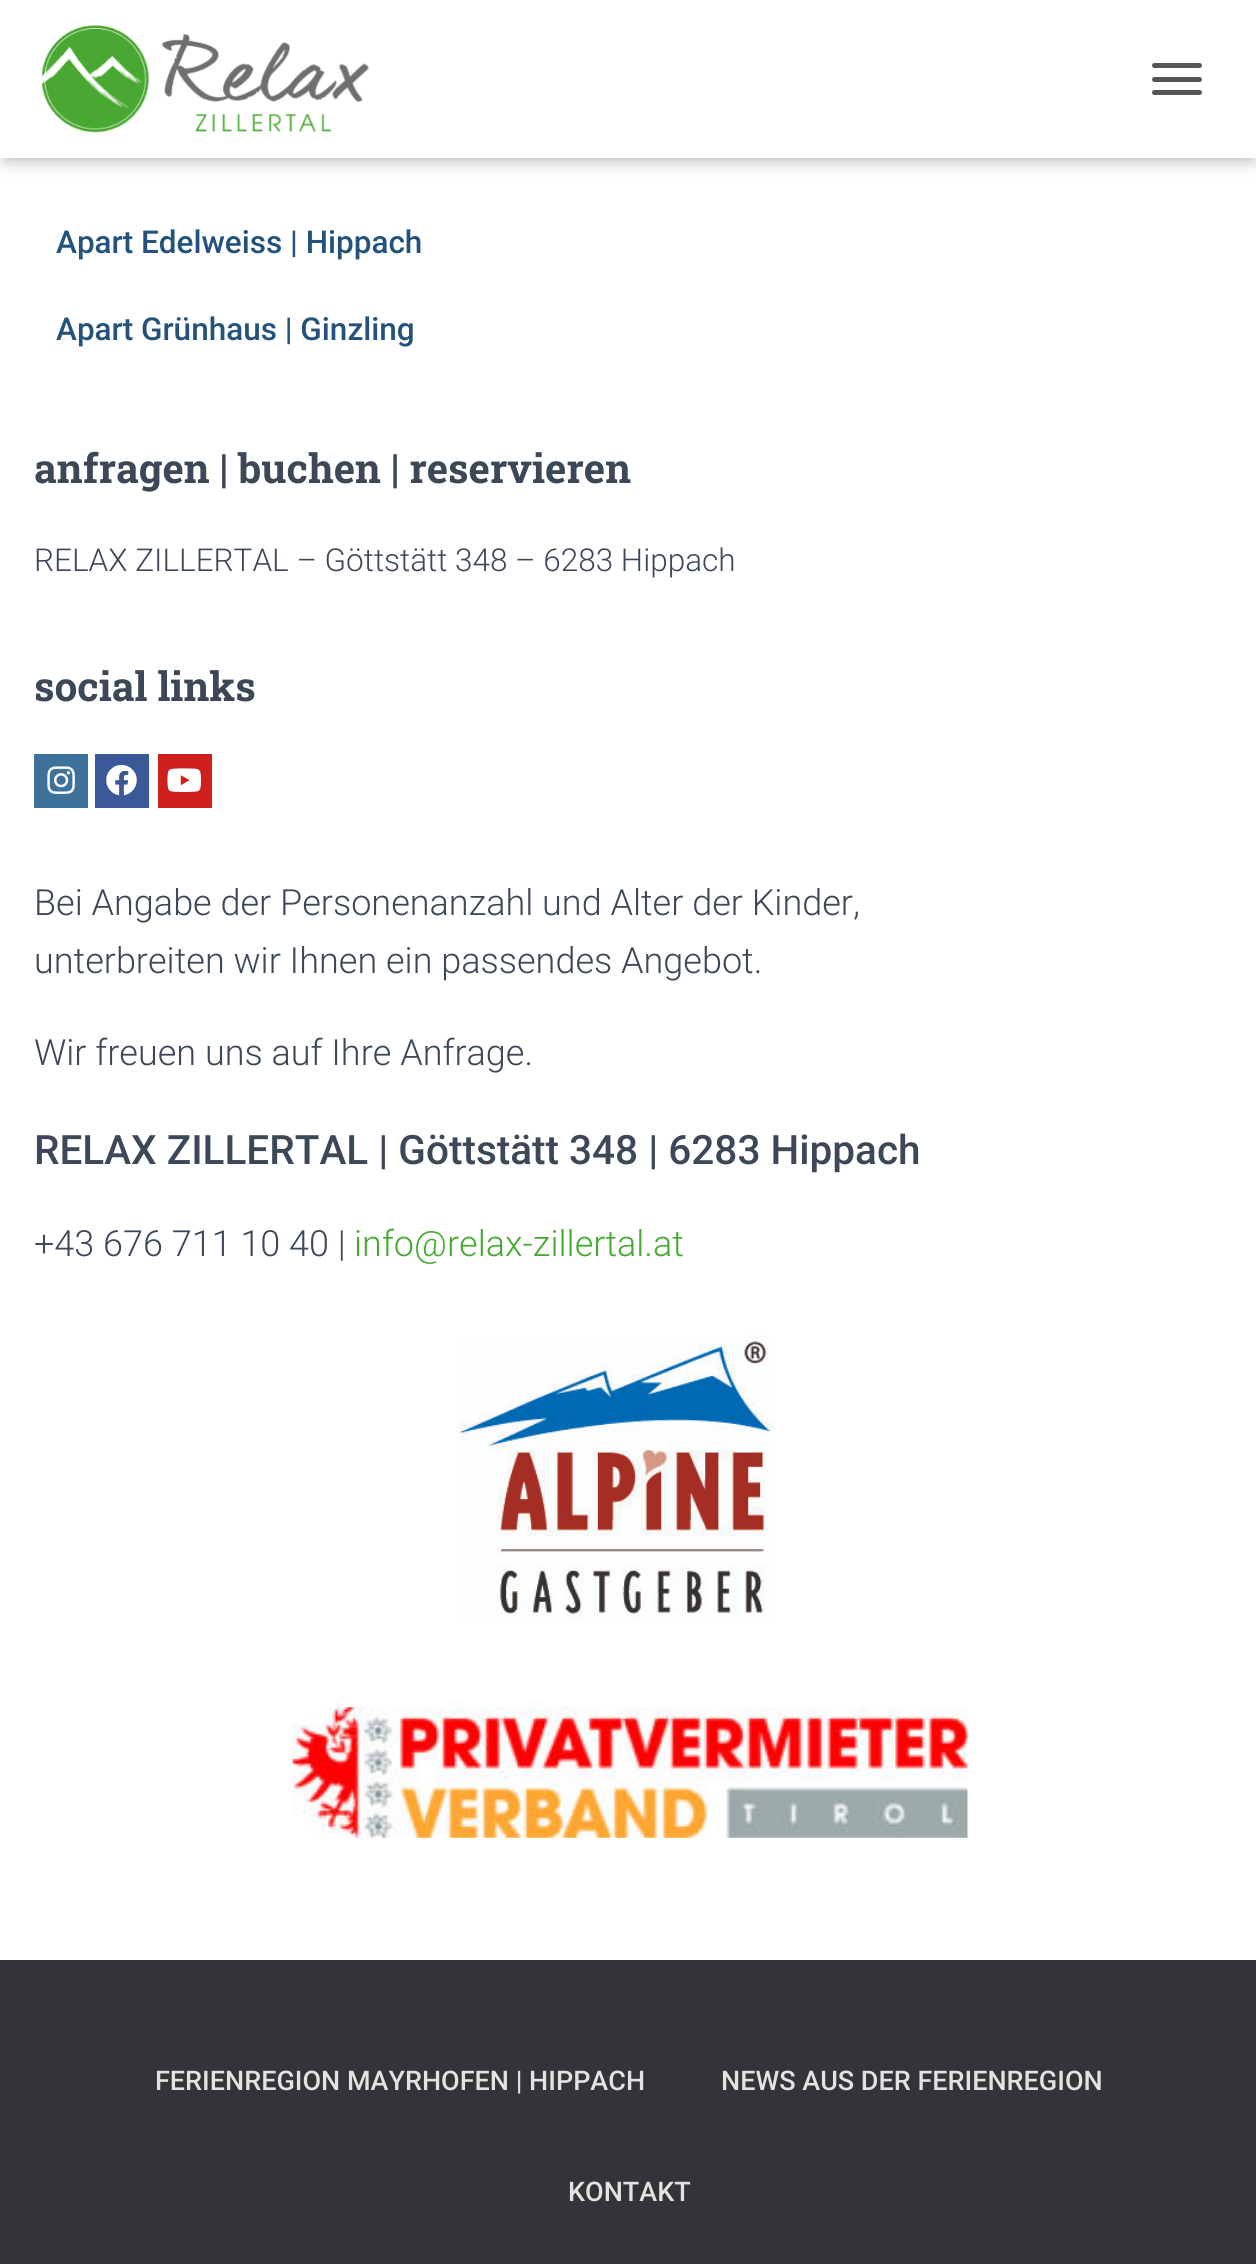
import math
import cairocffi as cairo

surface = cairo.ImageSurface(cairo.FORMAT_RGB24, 1256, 2264)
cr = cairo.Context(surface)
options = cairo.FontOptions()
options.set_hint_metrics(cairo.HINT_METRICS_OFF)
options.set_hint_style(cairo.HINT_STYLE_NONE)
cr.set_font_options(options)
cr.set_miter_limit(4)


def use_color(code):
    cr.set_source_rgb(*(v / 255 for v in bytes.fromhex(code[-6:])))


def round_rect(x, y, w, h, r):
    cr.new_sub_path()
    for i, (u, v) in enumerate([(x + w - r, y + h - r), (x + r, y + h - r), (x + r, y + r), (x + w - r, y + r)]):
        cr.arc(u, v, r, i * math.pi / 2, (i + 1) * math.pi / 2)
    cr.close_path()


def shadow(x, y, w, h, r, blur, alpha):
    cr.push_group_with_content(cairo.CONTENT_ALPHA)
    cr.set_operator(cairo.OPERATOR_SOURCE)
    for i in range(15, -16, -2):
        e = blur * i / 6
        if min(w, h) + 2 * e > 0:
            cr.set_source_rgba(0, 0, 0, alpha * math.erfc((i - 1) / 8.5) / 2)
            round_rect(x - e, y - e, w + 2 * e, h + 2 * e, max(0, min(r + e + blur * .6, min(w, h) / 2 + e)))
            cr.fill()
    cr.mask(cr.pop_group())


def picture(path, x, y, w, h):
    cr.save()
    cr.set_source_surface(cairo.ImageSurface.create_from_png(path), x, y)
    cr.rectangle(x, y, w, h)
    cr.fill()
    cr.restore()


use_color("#ffffff")
cr.paint()
use_color("#000000")
shadow(5, 14, 1248, 148, 0, 5.5, 0.1)
shadow(0, 2, 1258, 158, 0, 11, 0.12)
shadow(14, 16, 1230, 130, 0, 11, 0.42)
use_color("#ffffff")
cr.rectangle(0, 0, 1256, 158)
cr.fill()
picture("img1.png", 41, 25, 329, 108)
use_color("#555555")
round_rect(1152, 63, 50, 5, 2.5)
cr.fill()
round_rect(1152, 77, 50, 5, 2.5)
cr.fill()
round_rect(1152, 90, 50, 5, 2.5)
cr.fill()
cr.select_font_face("Roboto Medium")
cr.set_font_size(31.5)
use_color("#23527c")
cr.move_to(56, 253)
cr.show_text("Apart Edelweiss | Hippach")
cr.move_to(56, 340)
cr.show_text("Apart Grünhaus | Ginzling")
cr.select_font_face("Roboto Slab", cairo.FONT_SLANT_NORMAL, cairo.FONT_WEIGHT_BOLD)
cr.set_font_size(40.5)
use_color("#3c4858")
cr.move_to(34, 483)
cr.show_text("anfragen | buchen | reservieren")
cr.select_font_face("Roboto Light")
cr.set_font_size(31.5)
cr.move_to(34, 571)
cr.show_text("RELAX ZILLERTAL – Göttstätt 348 – 6283 Hippach")
cr.select_font_face("Roboto Slab", cairo.FONT_SLANT_NORMAL, cairo.FONT_WEIGHT_BOLD)
cr.set_font_size(40.5)
cr.move_to(34, 701)
cr.show_text("social links")
use_color("#3f729b")
cr.rectangle(34, 754, 54, 54)
cr.fill()
picture("img2.png", 47, 766, 28, 28)
use_color("#3b5998")
cr.rectangle(95, 754, 54, 54)
cr.fill()
picture("img3.png", 106, 764, 31, 32)
use_color("#cd201f")
cr.rectangle(158, 754, 54, 54)
cr.fill()
picture("img4.png", 167, 768, 34, 24)
cr.select_font_face("Roboto Light")
cr.set_font_size(36)
use_color("#3c4858")
cr.move_to(34, 915)
cr.show_text("Bei Angabe der Personenanzahl und Alter der Kinder,")
cr.move_to(34, 973)
cr.show_text("unterbreiten wir Ihnen ein passendes Angebot.")
cr.move_to(34, 1065)
cr.show_text("Wir freuen uns auf Ihre Anfrage.")
cr.select_font_face("Roboto Medium")
cr.set_font_size(40.5)
cr.move_to(34, 1164)
cr.show_text("RELAX ZILLERTAL | Göttstätt 348 | 6283 Hippach")
cr.select_font_face("Roboto Light")
cr.set_font_size(36)
cr.move_to(34, 1256)
cr.show_text("+43 676 711 10 40 |")
use_color("#45aa32")
cr.move_to(354, 1256)
cr.show_text("info@relax-zillertal.at")
picture("img5.png", 459, 1335, 316, 287)
picture("img6.png", 292, 1707, 676, 131)
use_color("#323437")
cr.rectangle(0, 1960, 1256, 304)
cr.fill()
cr.select_font_face("Roboto Medium")
cr.set_font_size(27)
use_color("#e2e3e3")
cr.move_to(155, 2090)
cr.show_text("FERIENREGION MAYRHOFEN | HIPPACH")
cr.move_to(721, 2090)
cr.show_text("NEWS AUS DER FERIENREGION")
cr.move_to(568, 2201)
cr.show_text("KONTAKT")
surface.write_to_png("result.png")
